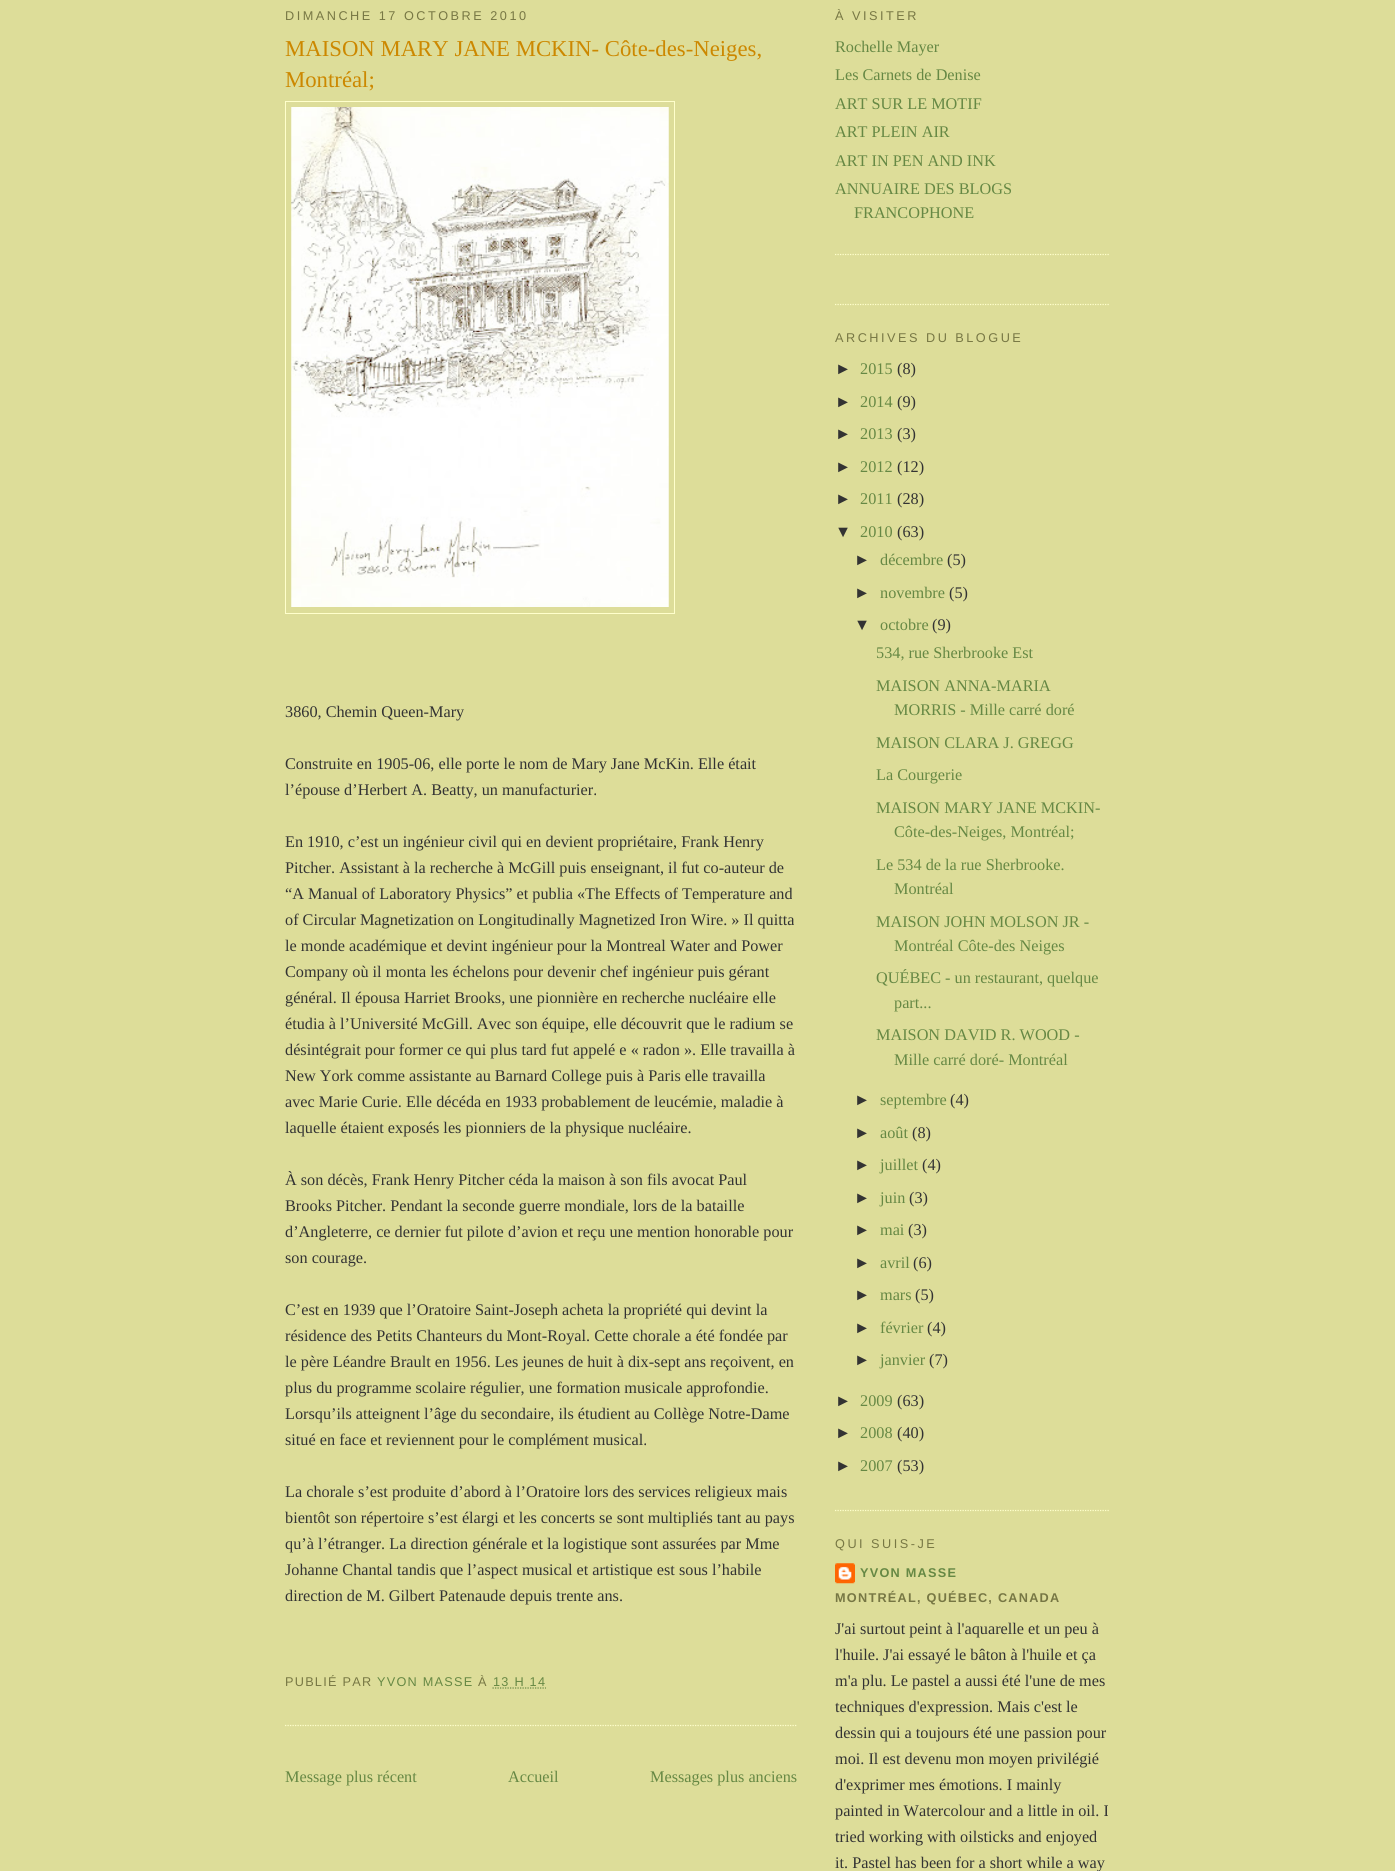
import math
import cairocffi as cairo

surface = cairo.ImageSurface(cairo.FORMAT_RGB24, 1395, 1871)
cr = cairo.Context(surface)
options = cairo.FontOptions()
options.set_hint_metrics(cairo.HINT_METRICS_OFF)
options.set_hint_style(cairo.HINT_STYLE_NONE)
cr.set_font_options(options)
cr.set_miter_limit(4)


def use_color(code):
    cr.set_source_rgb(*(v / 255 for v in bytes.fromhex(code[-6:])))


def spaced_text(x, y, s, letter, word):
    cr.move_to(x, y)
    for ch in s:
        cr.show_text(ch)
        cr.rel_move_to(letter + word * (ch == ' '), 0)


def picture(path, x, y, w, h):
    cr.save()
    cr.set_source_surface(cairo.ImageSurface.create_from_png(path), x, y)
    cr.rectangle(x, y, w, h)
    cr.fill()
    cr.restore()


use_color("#dddd99")
cr.paint()
cr.select_font_face("Liberation Sans")
cr.set_font_size(12.7)
use_color("#777744")
spaced_text(285, 20, "DIMANCHE 17 OCTOBRE 2010", 2.5, 0)
cr.new_path()
cr.move_to(285, 1725.5)
cr.line_to(797.5, 1725.5)
use_color("#ffffcc")
cr.set_line_width(1.2)
cr.set_dash([1.25, 1.25])
cr.stroke()
cr.select_font_face("Liberation Serif")
cr.set_font_size(22.75)
use_color("#cc8800")
cr.move_to(285, 56)
cr.show_text("MAISON MARY JANE MCKIN- Côte-des-Neiges,")
cr.move_to(285, 87)
cr.show_text("Montréal;")
cr.rectangle(285.5, 101.5, 389, 512)
use_color("#ffffcc")
cr.set_line_width(1)
cr.set_dash([])
cr.stroke()
picture("img1.png", 291, 107, 378, 500)
cr.set_font_size(16.25)
use_color("#333333")
cr.move_to(285, 717)
cr.show_text("3860, Chemin Queen-Mary")
cr.move_to(285, 769)
cr.show_text("Construite en 1905-06, elle porte le nom de Mary Jane McKin. Elle était")
cr.move_to(285, 795)
cr.show_text("l’épouse d’Herbert A. Beatty, un manufacturier.")
cr.move_to(285, 847)
cr.show_text("En 1910, c’est un ingénieur civil qui en devient propriétaire, Frank Henry")
cr.move_to(285, 873)
cr.show_text("Pitcher. Assistant à la recherche à McGill puis enseignant, il fut co-auteur de")
cr.move_to(285, 899)
cr.show_text("“A Manual of Laboratory Physics” et publia «The Effects of Temperature and")
cr.move_to(285, 925)
cr.show_text("of Circular Magnetization on Longitudinally Magnetized Iron Wire. » Il quitta")
cr.move_to(285, 951)
cr.show_text("le monde académique et devint ingénieur pour la Montreal Water and Power")
cr.move_to(285, 977)
cr.show_text("Company où il monta les échelons pour devenir chef ingénieur puis gérant")
cr.move_to(285, 1003)
cr.show_text("général. Il épousa Harriet Brooks, une pionnière en recherche nucléaire elle")
cr.move_to(285, 1029)
cr.show_text("étudia à l’Université McGill. Avec son équipe, elle découvrit que le radium se")
cr.move_to(285, 1055)
cr.show_text("désintégrait pour former ce qui plus tard fut appelé e « radon ». Elle travailla à")
cr.move_to(285, 1081)
cr.show_text("New York comme assistante au Barnard College puis à Paris elle travailla")
cr.move_to(285, 1107)
cr.show_text("avec Marie Curie. Elle décéda en 1933 probablement de leucémie, maladie à")
cr.move_to(285, 1133)
cr.show_text("laquelle étaient exposés les pionniers de la physique nucléaire.")
cr.move_to(285, 1185)
cr.show_text("À son décès, Frank Henry Pitcher céda la maison à son fils avocat Paul")
cr.move_to(285, 1211)
cr.show_text("Brooks Pitcher. Pendant la seconde guerre mondiale, lors de la bataille")
cr.move_to(285, 1237)
cr.show_text("d’Angleterre, ce dernier fut pilote d’avion et reçu une mention honorable pour")
cr.move_to(285, 1263)
cr.show_text("son courage.")
cr.move_to(285, 1315)
cr.show_text("C’est en 1939 que l’Oratoire Saint-Joseph acheta la propriété qui devint la")
cr.move_to(285, 1341)
cr.show_text("résidence des Petits Chanteurs du Mont-Royal. Cette chorale a été fondée par")
cr.move_to(285, 1367)
cr.show_text("le père Léandre Brault en 1956. Les jeunes de huit à dix-sept ans reçoivent, en")
cr.move_to(285, 1393)
cr.show_text("plus du programme scolaire régulier, une formation musicale approfondie.")
cr.move_to(285, 1419)
cr.show_text("Lorsqu’ils atteignent l’âge du secondaire, ils étudient au Collège Notre-Dame")
cr.move_to(285, 1445)
cr.show_text("situé en face et reviennent pour le complément musical.")
cr.move_to(285, 1497)
cr.show_text("La chorale s’est produite d’abord à l’Oratoire lors des services religieux mais")
cr.move_to(285, 1523)
cr.show_text("bientôt son répertoire s’est élargi et les concerts se sont multipliés tant au pays")
cr.move_to(285, 1549)
cr.show_text("qu’à l’étranger. La direction générale et la logistique sont assurées par Mme")
cr.move_to(285, 1575)
cr.show_text("Johanne Chantal tandis que l’aspect musical et artistique est sous l’habile")
cr.move_to(285, 1601)
cr.show_text("direction de M. Gilbert Patenaude depuis trente ans.")
cr.select_font_face("Liberation Sans")
cr.set_font_size(12.7)
use_color("#777744")
spaced_text(285, 1686, "PUBLIÉ PAR", 1.25, 0)
use_color("#668844")
spaced_text(377, 1686, "YVON MASSE", 1.25, 0)
use_color("#777744")
spaced_text(478, 1686, "À", 1.25, 0)
use_color("#668844")
spaced_text(493, 1686, "13 H 14", 1.25, 0)
cr.new_path()
cr.move_to(492.5, 1688)
cr.line_to(546, 1688)
cr.set_line_width(1.2)
cr.set_dash([1.25, 1.25])
cr.stroke()
cr.select_font_face("Liberation Serif")
cr.set_font_size(16.25)
cr.move_to(285, 1782)
cr.show_text("Message plus récent")
cr.move_to(508, 1782)
cr.show_text("Accueil")
cr.move_to(650, 1782)
cr.show_text("Messages plus anciens")
cr.new_path()
cr.move_to(835, 254.5)
cr.line_to(1110, 254.5)
use_color("#ffffcc")
cr.stroke()
cr.select_font_face("Liberation Sans")
cr.set_font_size(12.7)
use_color("#777744")
spaced_text(835, 20, "À VISITER", 2.5, 0)
cr.select_font_face("Liberation Serif")
cr.set_font_size(16.25)
use_color("#668844")
cr.move_to(835, 52)
cr.show_text("Rochelle Mayer")
cr.move_to(835, 80)
cr.show_text("Les Carnets de Denise")
cr.move_to(835, 109)
cr.show_text("ART SUR LE MOTIF")
cr.move_to(835, 137)
cr.show_text("ART PLEIN AIR")
cr.move_to(835, 166)
cr.show_text("ART IN PEN AND INK")
cr.move_to(835, 194)
cr.show_text("ANNUAIRE DES BLOGS")
cr.move_to(854, 218)
cr.show_text("FRANCOPHONE")
cr.new_path()
cr.move_to(835, 304.5)
cr.line_to(1110, 304.5)
use_color("#ffffcc")
cr.stroke()
cr.new_path()
cr.move_to(835, 1510.5)
cr.line_to(1110, 1510.5)
cr.stroke()
cr.select_font_face("Liberation Sans")
cr.set_font_size(12.7)
use_color("#777744")
spaced_text(835, 342, "ARCHIVES DU BLOGUE", 2.5, 0)
cr.set_font_size(16.25)
use_color("#333333")
cr.move_to(835, 374)
cr.show_text("►")
cr.select_font_face("Liberation Serif")
use_color("#668844")
cr.move_to(860, 374)
cr.show_text("2015")
use_color("#333333")
cr.move_to(897, 374)
cr.show_text("(8)")
cr.select_font_face("Liberation Sans")
cr.move_to(835, 407)
cr.show_text("►")
cr.select_font_face("Liberation Serif")
use_color("#668844")
cr.move_to(860, 407)
cr.show_text("2014")
use_color("#333333")
cr.move_to(897, 407)
cr.show_text("(9)")
cr.select_font_face("Liberation Sans")
cr.move_to(835, 439)
cr.show_text("►")
cr.select_font_face("Liberation Serif")
use_color("#668844")
cr.move_to(860, 439)
cr.show_text("2013")
use_color("#333333")
cr.move_to(897, 439)
cr.show_text("(3)")
cr.select_font_face("Liberation Sans")
cr.move_to(835, 472)
cr.show_text("►")
cr.select_font_face("Liberation Serif")
use_color("#668844")
cr.move_to(860, 472)
cr.show_text("2012")
use_color("#333333")
cr.move_to(897, 472)
cr.show_text("(12)")
cr.select_font_face("Liberation Sans")
cr.move_to(835, 504)
cr.show_text("►")
cr.select_font_face("Liberation Serif")
use_color("#668844")
cr.move_to(860, 504)
cr.show_text("2011")
use_color("#333333")
cr.move_to(897, 504)
cr.show_text("(28)")
cr.select_font_face("Liberation Sans")
cr.move_to(835, 537)
cr.show_text("▼")
cr.select_font_face("Liberation Serif")
use_color("#668844")
cr.move_to(860, 537)
cr.show_text("2010")
use_color("#333333")
cr.move_to(897, 537)
cr.show_text("(63)")
cr.select_font_face("Liberation Sans")
cr.move_to(854, 565)
cr.show_text("►")
cr.select_font_face("Liberation Serif")
use_color("#668844")
cr.move_to(880, 565)
cr.show_text("décembre")
use_color("#333333")
cr.move_to(947, 565)
cr.show_text("(5)")
cr.select_font_face("Liberation Sans")
cr.move_to(854, 598)
cr.show_text("►")
cr.select_font_face("Liberation Serif")
use_color("#668844")
cr.move_to(880, 598)
cr.show_text("novembre")
use_color("#333333")
cr.move_to(949, 598)
cr.show_text("(5)")
cr.select_font_face("Liberation Sans")
cr.move_to(854, 630)
cr.show_text("▼")
cr.select_font_face("Liberation Serif")
use_color("#668844")
cr.move_to(880, 630)
cr.show_text("octobre")
use_color("#333333")
cr.move_to(932, 630)
cr.show_text("(9)")
use_color("#668844")
cr.move_to(876, 658)
cr.show_text("534, rue Sherbrooke Est")
cr.move_to(876, 691)
cr.show_text("MAISON ANNA-MARIA")
cr.move_to(894, 715)
cr.show_text("MORRIS - Mille carré doré")
cr.move_to(876, 748)
cr.show_text("MAISON CLARA J. GREGG")
cr.move_to(876, 780)
cr.show_text("La Courgerie")
cr.move_to(876, 813)
cr.show_text("MAISON MARY JANE MCKIN-")
cr.move_to(894, 837)
cr.show_text("Côte-des-Neiges, Montréal;")
cr.move_to(876, 870)
cr.show_text("Le 534 de la rue Sherbrooke.")
cr.move_to(894, 894)
cr.show_text("Montréal")
cr.move_to(876, 927)
cr.show_text("MAISON JOHN MOLSON JR -")
cr.move_to(894, 951)
cr.show_text("Montréal Côte-des Neiges")
cr.move_to(876, 983)
cr.show_text("QUÉBEC - un restaurant, quelque")
cr.move_to(894, 1008)
cr.show_text("part...")
cr.move_to(876, 1040)
cr.show_text("MAISON DAVID R. WOOD -")
cr.move_to(894, 1065)
cr.show_text("Mille carré doré- Montréal")
cr.select_font_face("Liberation Sans")
use_color("#333333")
cr.move_to(854, 1105)
cr.show_text("►")
cr.select_font_face("Liberation Serif")
use_color("#668844")
cr.move_to(880, 1105)
cr.show_text("septembre")
use_color("#333333")
cr.move_to(950, 1105)
cr.show_text("(4)")
cr.select_font_face("Liberation Sans")
cr.move_to(854, 1138)
cr.show_text("►")
cr.select_font_face("Liberation Serif")
use_color("#668844")
cr.move_to(880, 1138)
cr.show_text("août")
use_color("#333333")
cr.move_to(912, 1138)
cr.show_text("(8)")
cr.select_font_face("Liberation Sans")
cr.move_to(854, 1170)
cr.show_text("►")
cr.select_font_face("Liberation Serif")
use_color("#668844")
cr.move_to(880, 1170)
cr.show_text("juillet")
use_color("#333333")
cr.move_to(922, 1170)
cr.show_text("(4)")
cr.select_font_face("Liberation Sans")
cr.move_to(854, 1203)
cr.show_text("►")
cr.select_font_face("Liberation Serif")
use_color("#668844")
cr.move_to(880, 1203)
cr.show_text("juin")
use_color("#333333")
cr.move_to(909, 1203)
cr.show_text("(3)")
cr.select_font_face("Liberation Sans")
cr.move_to(854, 1235)
cr.show_text("►")
cr.select_font_face("Liberation Serif")
use_color("#668844")
cr.move_to(880, 1235)
cr.show_text("mai")
use_color("#333333")
cr.move_to(908, 1235)
cr.show_text("(3)")
cr.select_font_face("Liberation Sans")
cr.move_to(854, 1268)
cr.show_text("►")
cr.select_font_face("Liberation Serif")
use_color("#668844")
cr.move_to(880, 1268)
cr.show_text("avril")
use_color("#333333")
cr.move_to(913, 1268)
cr.show_text("(6)")
cr.select_font_face("Liberation Sans")
cr.move_to(854, 1300)
cr.show_text("►")
cr.select_font_face("Liberation Serif")
use_color("#668844")
cr.move_to(880, 1300)
cr.show_text("mars")
use_color("#333333")
cr.move_to(915, 1300)
cr.show_text("(5)")
cr.select_font_face("Liberation Sans")
cr.move_to(854, 1333)
cr.show_text("►")
cr.select_font_face("Liberation Serif")
use_color("#668844")
cr.move_to(880, 1333)
cr.show_text("février")
use_color("#333333")
cr.move_to(927, 1333)
cr.show_text("(4)")
cr.select_font_face("Liberation Sans")
cr.move_to(854, 1365)
cr.show_text("►")
cr.select_font_face("Liberation Serif")
use_color("#668844")
cr.move_to(880, 1365)
cr.show_text("janvier")
use_color("#333333")
cr.move_to(929, 1365)
cr.show_text("(7)")
cr.select_font_face("Liberation Sans")
cr.move_to(835, 1406)
cr.show_text("►")
cr.select_font_face("Liberation Serif")
use_color("#668844")
cr.move_to(860, 1406)
cr.show_text("2009")
use_color("#333333")
cr.move_to(897, 1406)
cr.show_text("(63)")
cr.select_font_face("Liberation Sans")
cr.move_to(835, 1438)
cr.show_text("►")
cr.select_font_face("Liberation Serif")
use_color("#668844")
cr.move_to(860, 1438)
cr.show_text("2008")
use_color("#333333")
cr.move_to(897, 1438)
cr.show_text("(40)")
cr.select_font_face("Liberation Sans")
cr.move_to(835, 1471)
cr.show_text("►")
cr.select_font_face("Liberation Serif")
use_color("#668844")
cr.move_to(860, 1471)
cr.show_text("2007")
use_color("#333333")
cr.move_to(897, 1471)
cr.show_text("(53)")
cr.select_font_face("Liberation Sans")
cr.set_font_size(12.7)
use_color("#777744")
spaced_text(835, 1548, "QUI SUIS-JE", 2.5, 0)
picture("img2.png", 835, 1563, 20, 21)
cr.select_font_face("Liberation Sans", cairo.FONT_SLANT_NORMAL, cairo.FONT_WEIGHT_BOLD)
use_color("#668844")
spaced_text(860, 1577, "YVON MASSE", 1.25, 0)
use_color("#777744")
spaced_text(835, 1602, "MONTRÉAL, QUÉBEC, CANADA", 1.25, 0)
cr.select_font_face("Liberation Serif")
cr.set_font_size(16.25)
use_color("#333333")
cr.move_to(835, 1634)
cr.show_text("J'ai surtout peint à l'aquarelle et un peu à")
cr.move_to(835, 1660)
cr.show_text("l'huile. J'ai essayé le bâton à l'huile et ça")
cr.move_to(835, 1686)
cr.show_text("m'a plu. Le pastel a aussi été l'une de mes")
cr.move_to(835, 1712)
cr.show_text("techniques d'expression. Mais c'est le")
cr.move_to(835, 1738)
cr.show_text("dessin qui a toujours été une passion pour")
cr.move_to(835, 1764)
cr.show_text("moi. Il est devenu mon moyen privilégié")
cr.move_to(835, 1790)
cr.show_text("d'exprimer mes émotions. I mainly")
cr.move_to(835, 1816)
cr.show_text("painted in Watercolour and a little in oil. I")
cr.move_to(835, 1842)
cr.show_text("tried working with oilsticks and enjoyed")
cr.move_to(835, 1868)
cr.show_text("it. Pastel has been for a short while a way")
surface.write_to_png("result.png")
